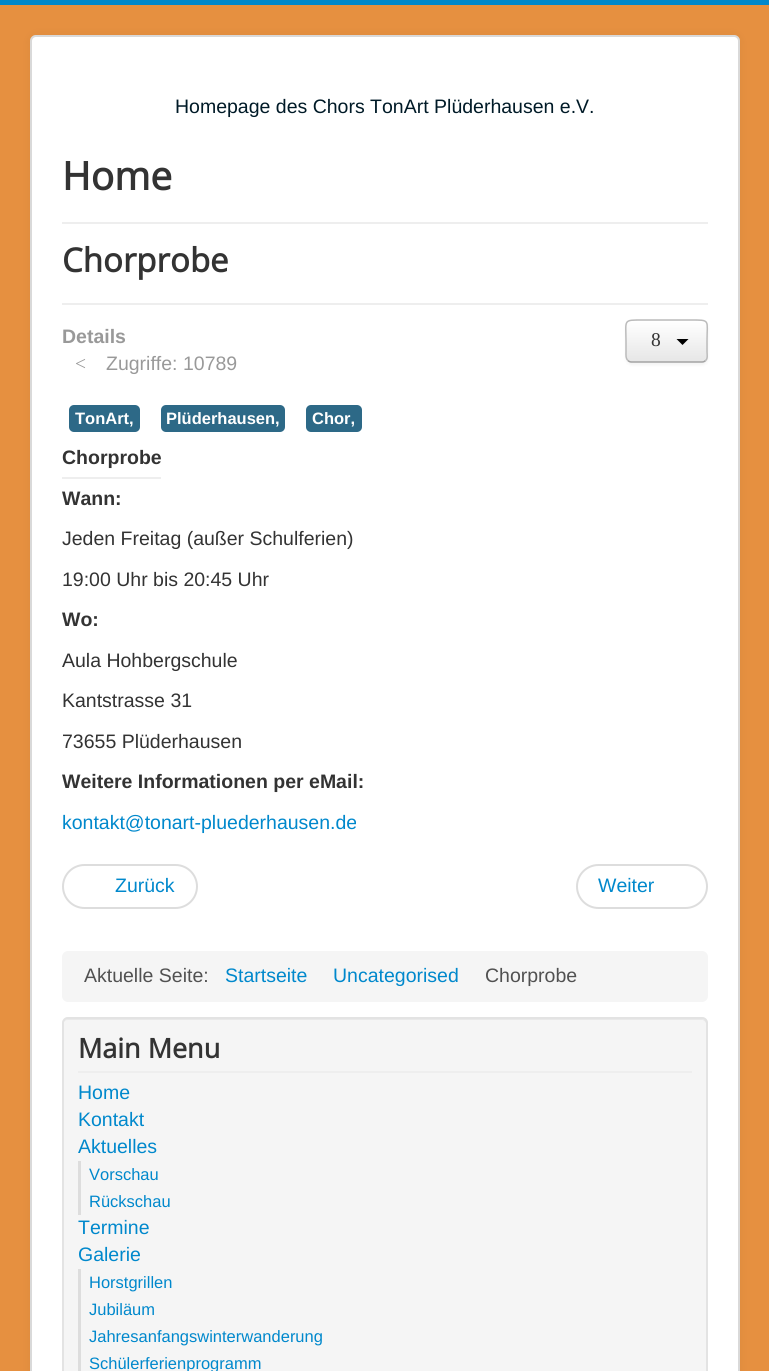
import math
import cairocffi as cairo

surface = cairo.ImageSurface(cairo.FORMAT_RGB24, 769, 1371)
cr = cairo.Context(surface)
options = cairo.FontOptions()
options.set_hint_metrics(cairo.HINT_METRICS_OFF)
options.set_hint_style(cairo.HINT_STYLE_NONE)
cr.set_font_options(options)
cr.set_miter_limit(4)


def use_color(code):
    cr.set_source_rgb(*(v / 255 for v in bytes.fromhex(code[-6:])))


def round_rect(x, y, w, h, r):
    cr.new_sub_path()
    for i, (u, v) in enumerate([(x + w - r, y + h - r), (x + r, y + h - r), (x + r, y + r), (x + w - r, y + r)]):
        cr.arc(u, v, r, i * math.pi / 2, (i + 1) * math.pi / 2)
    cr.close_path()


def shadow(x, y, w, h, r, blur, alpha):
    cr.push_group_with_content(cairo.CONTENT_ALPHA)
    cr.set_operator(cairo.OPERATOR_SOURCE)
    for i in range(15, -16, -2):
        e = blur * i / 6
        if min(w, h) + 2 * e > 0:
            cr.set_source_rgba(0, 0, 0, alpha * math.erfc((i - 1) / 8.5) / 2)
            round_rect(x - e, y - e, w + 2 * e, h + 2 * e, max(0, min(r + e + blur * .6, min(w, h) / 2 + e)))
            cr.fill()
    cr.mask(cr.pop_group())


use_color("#e69040")
cr.paint()
use_color("#0088cc")
cr.rectangle(0, 0, 769, 5)
cr.fill()
use_color("#000000")
shadow(30, 35, 710, 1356, 6, 4.5, 0.05)
use_color("#ffffff")
round_rect(30, 35, 710, 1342, 6)
cr.fill()
round_rect(31, 36, 708, 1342, 5)
cr.set_source_rgba(0, 0, 0, 0.15)
cr.stroke()
cr.select_font_face("Liberation Sans")
cr.set_font_size(19.5)
use_color("#001a27")
cr.move_to(175, 113)
cr.show_text("Homepage des Chors TonArt Plüderhausen e.V.")
use_color("#eeeeee")
cr.rectangle(62, 222, 646, 2)
cr.fill()
cr.select_font_face("Open Sans", cairo.FONT_SLANT_NORMAL, cairo.FONT_WEIGHT_BOLD)
cr.set_font_size(39)
use_color("#333333")
cr.move_to(62, 190)
cr.show_text("Home")
use_color("#eeeeee")
cr.rectangle(62, 303, 646, 2)
cr.fill()
cr.set_font_size(33)
use_color("#333333")
cr.move_to(62, 272)
cr.show_text("Chorprobe")
cr.select_font_face("Liberation Sans", cairo.FONT_SLANT_NORMAL, cairo.FONT_WEIGHT_BOLD)
cr.set_font_size(19.5)
use_color("#999999")
cr.move_to(62, 343)
cr.show_text("Details")
cr.select_font_face("Liberation Serif")
cr.move_to(75, 370)
cr.show_text("<")
cr.select_font_face("Liberation Sans")
cr.move_to(106, 370)
cr.show_text("Zugriffe: 10789")
use_color("#000000")
shadow(626, 321, 82, 44, 6, 1.5, 0.05)
use_color("#f5f5f5")
round_rect(626, 320, 82, 43, 6)
cr.fill()
cr.save()
round_rect(626, 320, 82, 43, 6)
cr.clip()
gradient = cairo.LinearGradient(667, 321, 667, 362)
gradient.add_color_stop_rgba(0, 1, 1, 1, 1)
gradient.add_color_stop_rgba(1, 0.902, 0.902, 0.902, 1)
cr.set_source(gradient)
cr.rectangle(626, 321, 82, 41)
cr.fill()
cr.restore()
cr.set_source_rgba(1, 1, 1, 0.2)
cr.new_path()
cr.move_to(632, 322)
cr.line_to(702, 322)
cr.curve_to(704, 322, 706, 325, 706, 327)
cr.line_to(706, 358)
cr.line_to(705, 361)
cr.curve_to(706, 360, 707, 358, 707, 357)
cr.line_to(707, 326)
cr.curve_to(707, 323, 705, 321, 702, 321)
cr.line_to(632, 321)
cr.curve_to(629, 321, 627, 323, 627, 326)
cr.line_to(627, 327)
cr.curve_to(627, 325, 629, 322, 632, 322)
cr.close_path()
cr.fill()
cr.new_path()
cr.move_to(705.5, 360.5)
cr.curve_to(704.5, 361.5, 703.5, 362, 702, 362)
cr.line_to(631.5, 362)
cr.curve_to(630, 362, 629, 361.5, 628, 360.5)
use_color("#a2a2a2")
cr.set_line_width(1.5)
cr.stroke()
cr.new_path()
cr.move_to(628, 360.5)
cr.curve_to(625.5, 358.5, 626, 354.5, 626, 352)
cr.line_to(626, 341)
cr.curve_to(626, 319.5, 622.5, 320, 643, 320)
cr.line_to(690, 320)
cr.curve_to(711, 320, 707, 319.5, 707, 341)
cr.line_to(707, 352)
cr.curve_to(707, 354.5, 708, 358.5, 705.5, 360.5)
use_color("#bbbbbb")
cr.stroke()
cr.select_font_face("Liberation Serif")
use_color("#333333")
cr.move_to(651, 346)
cr.show_text("8")
use_color("#000000")
cr.new_path()
cr.move_to(676.5, 339)
cr.line_to(688.5, 339)
cr.line_to(682.5, 345)
cr.close_path()
cr.fill()
use_color("#2d6987")
round_rect(69, 405, 71, 27, 5)
cr.fill()
cr.select_font_face("Liberation Sans", cairo.FONT_SLANT_NORMAL, cairo.FONT_WEIGHT_BOLD)
cr.set_font_size(16.5)
use_color("#ffffff")
cr.move_to(75, 424)
cr.show_text("TonArt,")
use_color("#2d6987")
round_rect(161, 405, 124, 27, 5)
cr.fill()
use_color("#ffffff")
cr.move_to(166, 424)
cr.show_text("Plüderhausen,")
use_color("#2d6987")
round_rect(306, 405, 56, 27, 5)
cr.fill()
use_color("#ffffff")
cr.move_to(312, 424)
cr.show_text("Chor,")
cr.set_font_size(19.5)
use_color("#333333")
cr.move_to(62, 464)
cr.show_text("Chorprobe")
use_color("#eeeeee")
cr.rectangle(62, 477, 99, 2)
cr.fill()
use_color("#333333")
cr.move_to(62, 505)
cr.show_text("Wann:")
cr.select_font_face("Liberation Sans")
cr.move_to(62, 545)
cr.show_text("Jeden Freitag (außer Schulferien)")
cr.move_to(62, 586)
cr.show_text("19:00 Uhr bis 20:45 Uhr")
cr.select_font_face("Liberation Sans", cairo.FONT_SLANT_NORMAL, cairo.FONT_WEIGHT_BOLD)
cr.move_to(62, 626)
cr.show_text("Wo:")
cr.select_font_face("Liberation Sans")
cr.move_to(62, 667)
cr.show_text("Aula Hohbergschule")
cr.move_to(62, 707)
cr.show_text("Kantstrasse 31")
cr.move_to(62, 748)
cr.show_text("73655 Plüderhausen")
cr.select_font_face("Liberation Sans", cairo.FONT_SLANT_NORMAL, cairo.FONT_WEIGHT_BOLD)
cr.move_to(62, 788)
cr.show_text("Weitere Informationen per eMail:")
cr.select_font_face("Liberation Sans")
use_color("#0088cc")
cr.move_to(62, 829)
cr.show_text("kontakt@tonart-pluederhausen.de")
round_rect(63, 865, 134, 43, 21.5)
use_color("#dddddd")
cr.set_line_width(2)
cr.stroke()
use_color("#0088cc")
cr.move_to(115, 892)
cr.show_text("Zurück")
round_rect(577, 865, 130, 43, 21.5)
use_color("#dddddd")
cr.stroke()
use_color("#0088cc")
cr.move_to(598, 892)
cr.show_text("Weiter")
use_color("#f5f5f5")
round_rect(62, 951, 646, 51, 6)
cr.fill()
use_color("#515151")
cr.move_to(84, 982)
cr.show_text("Aktuelle Seite:")
use_color("#0088cc")
cr.move_to(225, 982)
cr.show_text("Startseite")
cr.move_to(333, 982)
cr.show_text("Uncategorised")
use_color("#515151")
cr.move_to(485, 982)
cr.show_text("Chorprobe")
use_color("#f5f5f5")
round_rect(62, 1017, 646, 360, 6)
cr.fill()
use_color("#e9e9e9")
cr.new_path()
cr.move_to(68, 1020)
cr.line_to(702, 1020)
cr.curve_to(704, 1020, 706, 1022, 706, 1024)
cr.line_to(706, 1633)
cr.curve_to(707, 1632, 707, 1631, 707, 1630)
cr.line_to(707, 1024)
cr.curve_to(707, 1021, 705, 1019, 702, 1019)
cr.line_to(68, 1019)
cr.curve_to(65, 1019, 63, 1021, 63, 1024)
cr.curve_to(63, 1022, 65, 1020, 68, 1020)
cr.close_path()
cr.fill()
round_rect(63, 1018, 644, 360, 5)
use_color("#e3e3e3")
cr.stroke()
use_color("#eeeeee")
cr.rectangle(78, 1071, 614, 2)
cr.fill()
cr.select_font_face("Open Sans", cairo.FONT_SLANT_NORMAL, cairo.FONT_WEIGHT_BOLD)
cr.set_font_size(27)
use_color("#333333")
cr.move_to(78, 1058)
cr.show_text("Main Menu")
cr.select_font_face("Liberation Sans")
cr.set_font_size(19.5)
use_color("#0088cc")
cr.move_to(78, 1099)
cr.show_text("Home")
cr.move_to(78, 1126)
cr.show_text("Kontakt")
cr.move_to(78, 1153)
cr.show_text("Aktuelles")
use_color("#dddddd")
cr.rectangle(78, 1161, 3, 54)
cr.fill()
cr.set_font_size(16.5)
use_color("#0088cc")
cr.move_to(89, 1180)
cr.show_text("Vorschau")
cr.move_to(89, 1207)
cr.show_text("Rückschau")
cr.set_font_size(19.5)
cr.move_to(78, 1234)
cr.show_text("Termine")
cr.move_to(78, 1261)
cr.show_text("Galerie")
use_color("#dddddd")
cr.rectangle(78, 1269, 3, 102)
cr.fill()
cr.set_font_size(16.5)
use_color("#0088cc")
cr.move_to(89, 1288)
cr.show_text("Horstgrillen")
cr.move_to(89, 1315)
cr.show_text("Jubiläum")
cr.move_to(89, 1342)
cr.show_text("Jahresanfangswinterwanderung")
cr.move_to(89, 1369)
cr.show_text("Schülerferienprogramm")
surface.write_to_png("result.png")
